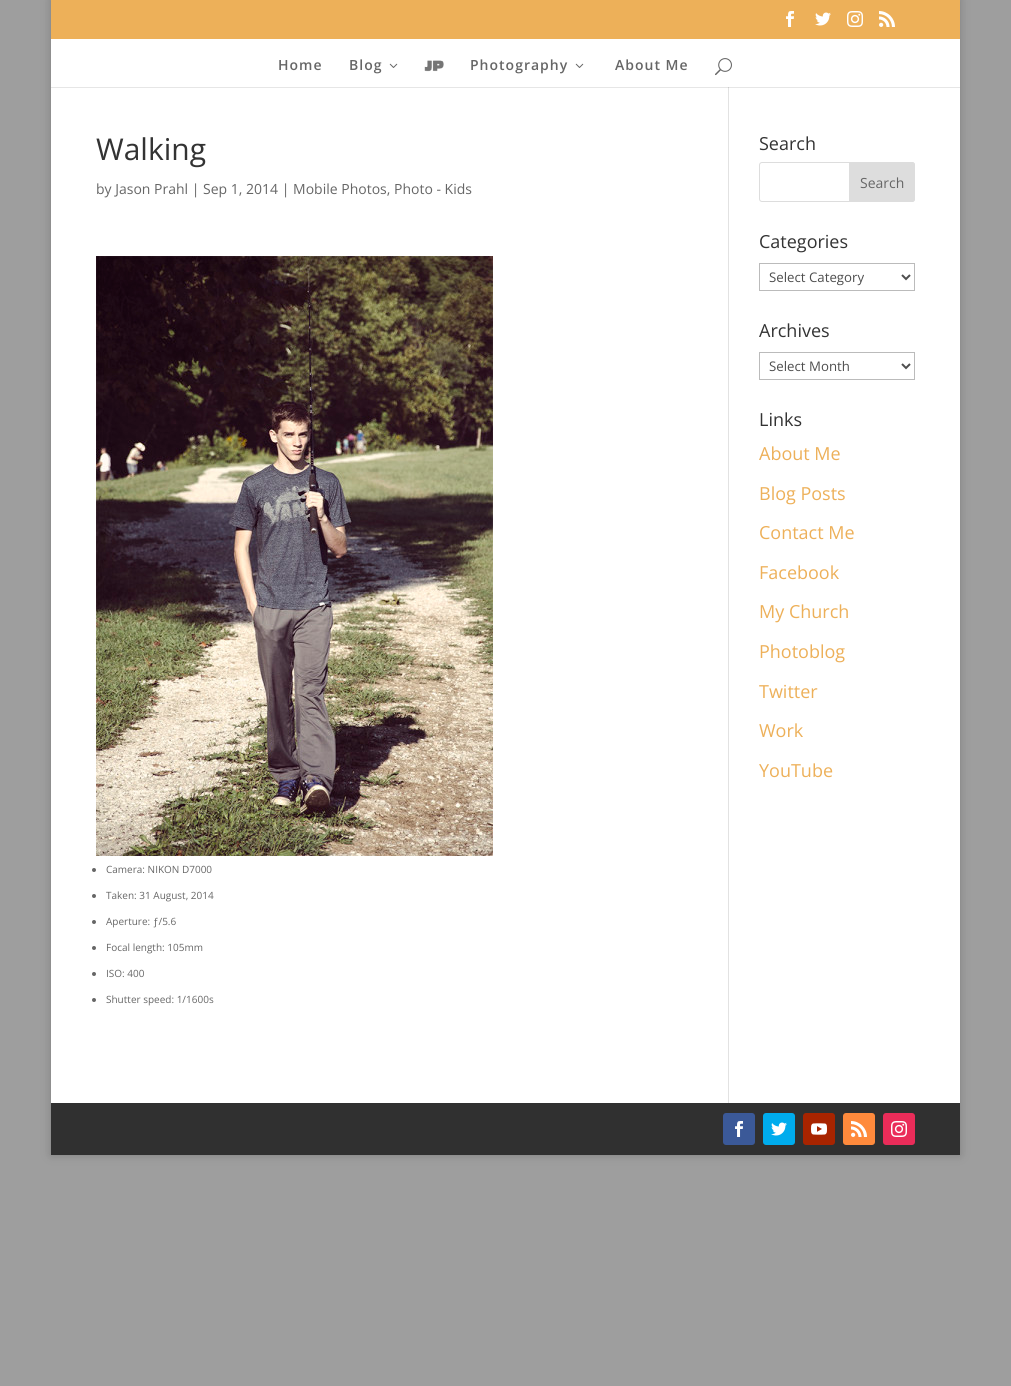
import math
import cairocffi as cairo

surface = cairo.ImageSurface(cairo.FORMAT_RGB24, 1011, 1386)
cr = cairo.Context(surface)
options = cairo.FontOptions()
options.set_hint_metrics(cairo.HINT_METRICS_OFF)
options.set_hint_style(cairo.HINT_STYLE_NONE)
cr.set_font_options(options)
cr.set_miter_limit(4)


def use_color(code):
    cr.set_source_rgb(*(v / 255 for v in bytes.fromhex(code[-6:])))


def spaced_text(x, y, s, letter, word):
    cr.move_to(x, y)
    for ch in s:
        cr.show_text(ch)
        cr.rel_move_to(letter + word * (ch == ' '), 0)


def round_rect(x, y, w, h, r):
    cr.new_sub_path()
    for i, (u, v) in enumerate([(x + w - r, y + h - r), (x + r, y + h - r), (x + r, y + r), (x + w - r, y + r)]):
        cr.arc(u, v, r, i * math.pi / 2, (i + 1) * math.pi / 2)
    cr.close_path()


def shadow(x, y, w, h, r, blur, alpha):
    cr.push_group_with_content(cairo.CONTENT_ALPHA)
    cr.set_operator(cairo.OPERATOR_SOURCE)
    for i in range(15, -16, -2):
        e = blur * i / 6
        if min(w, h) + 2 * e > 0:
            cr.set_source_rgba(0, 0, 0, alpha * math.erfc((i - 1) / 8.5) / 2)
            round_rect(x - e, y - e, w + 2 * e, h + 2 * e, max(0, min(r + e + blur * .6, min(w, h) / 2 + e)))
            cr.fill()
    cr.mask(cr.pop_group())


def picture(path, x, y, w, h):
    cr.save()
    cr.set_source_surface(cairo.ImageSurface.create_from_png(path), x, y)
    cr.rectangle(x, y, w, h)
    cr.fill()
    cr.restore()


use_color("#9e9e9e")
cr.paint()
use_color("#000000")
shadow(51, -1, 909, 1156, 0, 5, 0.2)
use_color("#edb059")
cr.rectangle(51, 0, 909, 39)
cr.fill()
picture("img1.png", 786, 11, 8, 16)
picture("img2.png", 815, 12, 16, 14)
picture("img3.png", 847, 11, 16, 16)
picture("img4.png", 879, 11, 16, 16)
use_color("#ffffff")
cr.rectangle(51, 39, 909, 48)
cr.fill()
cr.select_font_face("Open Sans SemiBold")
cr.set_font_size(14)
use_color("#666666")
spaced_text(278, 70, "Home", 1, 0)
spaced_text(349, 70, "Blog", 1, 0)
picture("img5.png", 389, 63, 9, 5)
picture("img6.png", 424, 60, 20, 12)
spaced_text(470, 70, "Photography", 1, 0)
picture("img5.png", 575, 63, 9, 5)
spaced_text(615, 70, "About Me", 1, 0)
picture("img7.png", 715, 58, 17, 18)
use_color("#ffffff")
cr.rectangle(51, 88, 909, 1015)
cr.fill()
use_color("#e6e6e6")
cr.rectangle(51, 87, 909, 1)
cr.fill()
use_color("#e2e2e2")
cr.rectangle(728, 88, 1, 1015)
cr.fill()
use_color("#cbcbcb")
cr.rectangle(728, 87, 1, 1)
cr.fill()
cr.select_font_face("Open Sans")
cr.set_font_size(30)
use_color("#333333")
cr.move_to(96, 160)
cr.show_text("Walking")
cr.set_font_size(14)
use_color("#666666")
cr.move_to(96, 194)
cr.show_text("by Jason Prahl | Sep 1, 2014 | Mobile Photos, Photo - Kids")
picture("img8.png", 96, 256, 397, 600)
cr.arc(94, 870, 2, 0, 2 * math.pi)
cr.fill()
cr.set_font_size(10)
cr.move_to(106, 873)
cr.show_text("Camera: NIKON D7000")
cr.new_path()
cr.arc(94, 896, 2, 0, 2 * math.pi)
cr.fill()
cr.move_to(106, 899)
cr.show_text("Taken: 31 August, 2014")
cr.new_path()
cr.arc(94, 922, 2, 0, 2 * math.pi)
cr.fill()
cr.move_to(106, 925)
cr.show_text("Aperture: ƒ/5.6")
cr.new_path()
cr.arc(94, 948, 2, 0, 2 * math.pi)
cr.fill()
cr.move_to(106, 951)
cr.show_text("Focal length: 105mm")
cr.new_path()
cr.arc(94, 974, 2, 0, 2 * math.pi)
cr.fill()
cr.move_to(106, 977)
cr.show_text("ISO: 400")
cr.new_path()
cr.arc(94, 1000, 2, 0, 2 * math.pi)
cr.fill()
cr.move_to(106, 1003)
cr.show_text("Shutter speed: 1/1600s")
cr.set_font_size(18)
use_color("#333333")
cr.move_to(759, 150)
cr.show_text("Search")
round_rect(759.5, 162.5, 155, 39, 2.5)
use_color("#dddddd")
cr.set_line_width(1)
cr.stroke()
cr.new_path()
cr.move_to(849.5, 162.5)
cr.line_to(912, 162.5)
cr.curve_to(913.5, 162.5, 914.5, 163.5, 914.5, 165)
cr.line_to(914.5, 199)
cr.curve_to(914.5, 200.5, 913.5, 201.5, 912, 201.5)
cr.line_to(849.5, 201.5)
cr.close_path()
cr.fill_preserve()
cr.stroke()
cr.set_font_size(14)
use_color("#666666")
cr.move_to(860, 188)
cr.show_text("Search")
cr.set_font_size(18)
use_color("#333333")
cr.move_to(759, 248)
cr.show_text("Categories")
cr.rectangle(759.5, 263.5, 155, 27)
use_color("#bbbbbb")
cr.stroke()
cr.new_path()
cr.move_to(902, 275)
cr.line_to(906, 279)
cr.line_to(910, 275)
use_color("#4e4e4e")
cr.set_line_width(2)
cr.stroke()
cr.set_font_size(13.25)
cr.move_to(769, 282)
cr.show_text("Select Category")
cr.set_font_size(18)
use_color("#333333")
cr.move_to(759, 337)
cr.show_text("Archives")
cr.rectangle(759.5, 352.5, 155, 27)
use_color("#bbbbbb")
cr.set_line_width(1)
cr.stroke()
cr.new_path()
cr.move_to(902, 364)
cr.line_to(906, 368)
cr.line_to(910, 364)
use_color("#4e4e4e")
cr.set_line_width(2)
cr.stroke()
cr.set_font_size(13.25)
cr.move_to(769, 371)
cr.show_text("Select Month")
cr.set_font_size(18)
use_color("#333333")
cr.move_to(759, 426)
cr.show_text("Links")
use_color("#edb059")
cr.move_to(759, 460)
cr.show_text("About Me")
cr.move_to(759, 500)
cr.show_text("Blog Posts")
cr.move_to(759, 539)
cr.show_text("Contact Me")
cr.move_to(759, 579)
cr.show_text("Facebook")
cr.move_to(759, 618)
cr.show_text("My Church")
cr.move_to(759, 658)
cr.show_text("Photoblog")
cr.move_to(759, 698)
cr.show_text("Twitter")
cr.move_to(759, 737)
cr.show_text("Work")
cr.move_to(759, 777)
cr.show_text("YouTube")
use_color("#303030")
cr.rectangle(51, 1103, 909, 52)
cr.fill()
use_color("#3b5998")
round_rect(723, 1113, 32, 32, 3)
cr.fill()
picture("img9.png", 735, 1121, 8, 16)
use_color("#00aced")
round_rect(763, 1113, 32, 32, 3)
cr.fill()
picture("img10.png", 771, 1122, 16, 14)
use_color("#a82400")
round_rect(803, 1113, 32, 32, 3)
cr.fill()
picture("img11.png", 811, 1123, 16, 12)
use_color("#ff8a3c")
round_rect(843, 1113, 32, 32, 3)
cr.fill()
picture("img12.png", 851, 1121, 16, 16)
use_color("#ea2c59")
round_rect(883, 1113, 32, 32, 3)
cr.fill()
picture("img13.png", 891, 1121, 16, 16)
surface.write_to_png("result.png")
